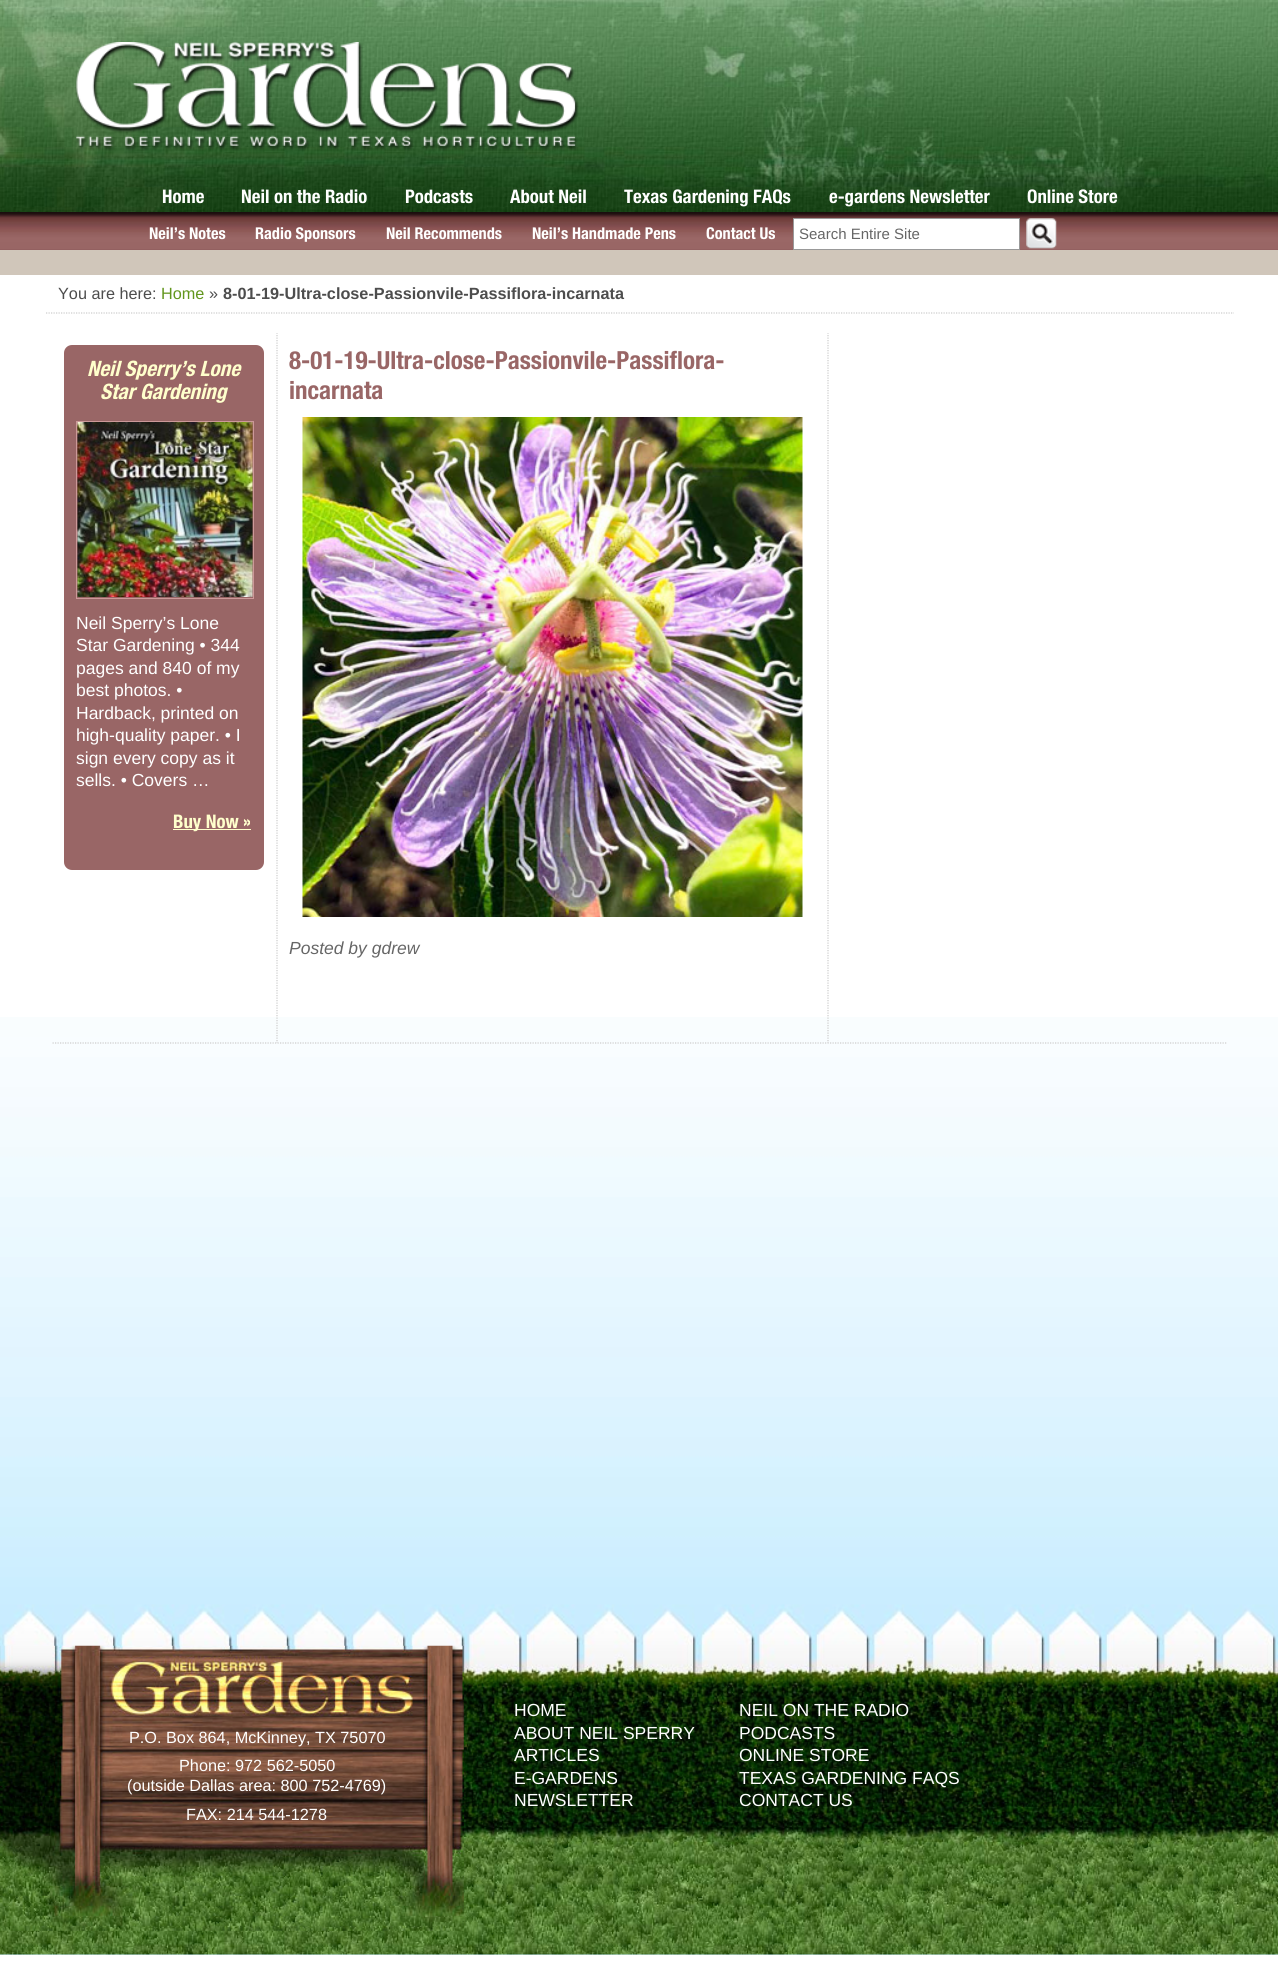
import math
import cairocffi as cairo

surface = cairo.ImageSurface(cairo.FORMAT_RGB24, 1278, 1967)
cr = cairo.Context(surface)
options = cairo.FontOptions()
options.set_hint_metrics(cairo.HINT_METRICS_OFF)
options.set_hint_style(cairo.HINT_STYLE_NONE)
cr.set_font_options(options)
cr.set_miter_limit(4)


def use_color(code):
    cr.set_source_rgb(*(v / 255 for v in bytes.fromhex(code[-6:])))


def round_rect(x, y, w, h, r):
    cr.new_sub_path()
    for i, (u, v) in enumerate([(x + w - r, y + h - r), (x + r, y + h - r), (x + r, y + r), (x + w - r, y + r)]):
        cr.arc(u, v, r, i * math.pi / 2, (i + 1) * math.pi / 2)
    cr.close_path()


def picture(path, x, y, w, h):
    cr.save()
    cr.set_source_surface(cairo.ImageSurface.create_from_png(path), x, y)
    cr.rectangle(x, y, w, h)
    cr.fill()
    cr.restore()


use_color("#ffffff")
cr.paint()
picture("img1.png", 0, 1017, 1278, 588)
picture("img2.png", 0, 0, 1278, 212)
picture("img3.png", 75, 42, 504, 109)
cr.select_font_face("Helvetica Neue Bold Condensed", cairo.FONT_SLANT_NORMAL, cairo.FONT_WEIGHT_BOLD)
cr.set_font_size(18.75)
use_color("#ffffff")
cr.move_to(162, 203)
cr.show_text("Home")
cr.move_to(241, 203)
cr.show_text("Neil on the Radio")
cr.move_to(405, 203)
cr.show_text("Podcasts")
cr.move_to(510, 203)
cr.show_text("About Neil")
cr.move_to(624, 203)
cr.show_text("Texas Gardening FAQs")
cr.move_to(829, 203)
cr.show_text("e-gardens Newsletter")
cr.move_to(1027, 203)
cr.show_text("Online Store")
use_color("#936060")
cr.rectangle(0, 249, 1278, 1)
cr.fill()
picture("img4.png", 0, 212, 1278, 37)
cr.set_font_size(16.25)
use_color("#ffffff")
cr.move_to(149, 239)
cr.show_text("Neil’s Notes")
cr.move_to(255, 239)
cr.show_text("Radio Sponsors")
cr.move_to(386, 239)
cr.show_text("Neil Recommends")
cr.move_to(532, 239)
cr.show_text("Neil’s Handmade Pens")
cr.move_to(706, 239)
cr.show_text("Contact Us")
cr.rectangle(793.5, 218.5, 226, 31)
cr.fill_preserve()
use_color("#999999")
cr.set_line_width(1)
cr.stroke()
cr.select_font_face("Liberation Sans")
cr.set_font_size(15)
use_color("#666666")
cr.move_to(799, 239)
cr.show_text("Search Entire Site")
picture("img5.png", 1026, 218, 31, 31)
use_color("#d0c6ba")
cr.rectangle(0, 250, 1278, 25)
cr.fill()
cr.new_path()
cr.move_to(46, 313)
cr.line_to(1234, 313)
use_color("#cccccc")
cr.set_line_width(1.2)
cr.set_dash([1.25, 1.25])
cr.stroke()
cr.set_font_size(16.25)
use_color("#4d4d4d")
cr.move_to(58, 299)
cr.show_text("You are here:")
use_color("#62961d")
cr.move_to(161, 299)
cr.show_text("Home")
use_color("#4d4d4d")
cr.move_to(209, 299)
cr.show_text("»")
cr.select_font_face("Liberation Sans", cairo.FONT_SLANT_NORMAL, cairo.FONT_WEIGHT_BOLD)
cr.move_to(223, 299)
cr.show_text("8-01-19-Ultra-close-Passionvile-Passiflora-incarnata")
cr.new_path()
cr.move_to(52.5, 1043)
cr.line_to(1227.5, 1043)
use_color("#cccccc")
cr.stroke()
cr.save()
cr.rectangle(53, 333, 1175, 710)
cr.clip()
cr.new_path()
cr.move_to(277, 332.5)
cr.line_to(277, 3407.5)
cr.stroke()
cr.restore()
use_color("#996666")
round_rect(64, 345, 200, 525, 8)
cr.fill()
cr.select_font_face("Helvetica Neue Bold Condensed", cairo.FONT_SLANT_ITALIC, cairo.FONT_WEIGHT_BOLD)
cr.set_font_size(21.25)
use_color("#ffffcc")
cr.move_to(87, 376)
cr.show_text("Neil Sperry’s Lone")
cr.move_to(100, 399)
cr.show_text("Star Gardening")
cr.rectangle(76.5, 421.5, 177, 177)
use_color("#cc9999")
cr.set_line_width(1)
cr.set_dash([])
cr.stroke()
picture("img6.png", 77, 422, 176, 175)
cr.select_font_face("Liberation Sans")
cr.set_font_size(17.5)
use_color("#ffffff")
cr.move_to(76, 629)
cr.show_text("Neil Sperry’s Lone")
cr.move_to(76, 651)
cr.show_text("Star Gardening • 344")
cr.move_to(76, 674)
cr.show_text("pages and 840 of my")
cr.move_to(76, 696)
cr.show_text("best photos. •")
cr.move_to(76, 719)
cr.show_text("Hardback, printed on")
cr.move_to(76, 741)
cr.show_text("high-quality paper. • I")
cr.move_to(76, 764)
cr.show_text("sign every copy as it")
cr.move_to(76, 786)
cr.show_text("sells. • Covers …")
use_color("#ffffcc")
cr.rectangle(173, 829, 78, 1)
cr.fill()
cr.select_font_face("Helvetica Neue Bold Condensed", cairo.FONT_SLANT_NORMAL, cairo.FONT_WEIGHT_BOLD)
cr.set_font_size(18.75)
cr.move_to(173, 828)
cr.show_text("Buy Now »")
cr.set_font_size(25)
use_color("#996666")
cr.move_to(289, 369)
cr.show_text("8-01-19-Ultra-close-Passionvile-Passiflora-")
cr.move_to(289, 399)
cr.show_text("incarnata")
picture("img7.png", 302, 417, 501, 500)
cr.select_font_face("Liberation Sans", cairo.FONT_SLANT_ITALIC)
cr.set_font_size(17.5)
use_color("#666666")
cr.move_to(289, 954)
cr.show_text("Posted by gdrew")
cr.save()
cr.rectangle(53, 333, 1175, 710)
cr.clip()
cr.new_path()
cr.move_to(828, 332.5)
cr.line_to(828, 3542.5)
use_color("#cccccc")
cr.set_line_width(1.2)
cr.set_dash([1.25, 1.25])
cr.stroke()
cr.restore()
use_color("#c8edff")
cr.rectangle(0, 1954, 1278, 1)
cr.fill()
picture("img8.png", 0, 1604, 1278, 351)
picture("img9.png", 0, 1645, 464, 286)
cr.select_font_face("Liberation Sans")
cr.set_font_size(16.25)
use_color("#ffffff")
cr.move_to(129, 1743)
cr.show_text("P.O. Box 864, McKinney, TX 75070")
cr.move_to(179, 1771)
cr.show_text("Phone: 972 562-5050")
cr.move_to(127, 1791)
cr.show_text("(outside Dallas area: 800 752-4769)")
cr.move_to(186, 1820)
cr.show_text("FAX: 214 544-1278")
cr.set_font_size(17.5)
cr.move_to(514, 1716)
cr.show_text("HOME")
cr.move_to(514, 1739)
cr.show_text("ABOUT NEIL SPERRY")
cr.move_to(514, 1761)
cr.show_text("ARTICLES")
cr.move_to(514, 1784)
cr.show_text("E-GARDENS")
cr.move_to(514, 1806)
cr.show_text("NEWSLETTER")
cr.move_to(739, 1716)
cr.show_text("NEIL ON THE RADIO")
cr.move_to(739, 1739)
cr.show_text("PODCASTS")
cr.move_to(739, 1761)
cr.show_text("ONLINE STORE")
cr.move_to(739, 1784)
cr.show_text("TEXAS GARDENING FAQS")
cr.move_to(739, 1806)
cr.show_text("CONTACT US")
surface.write_to_png("result.png")
